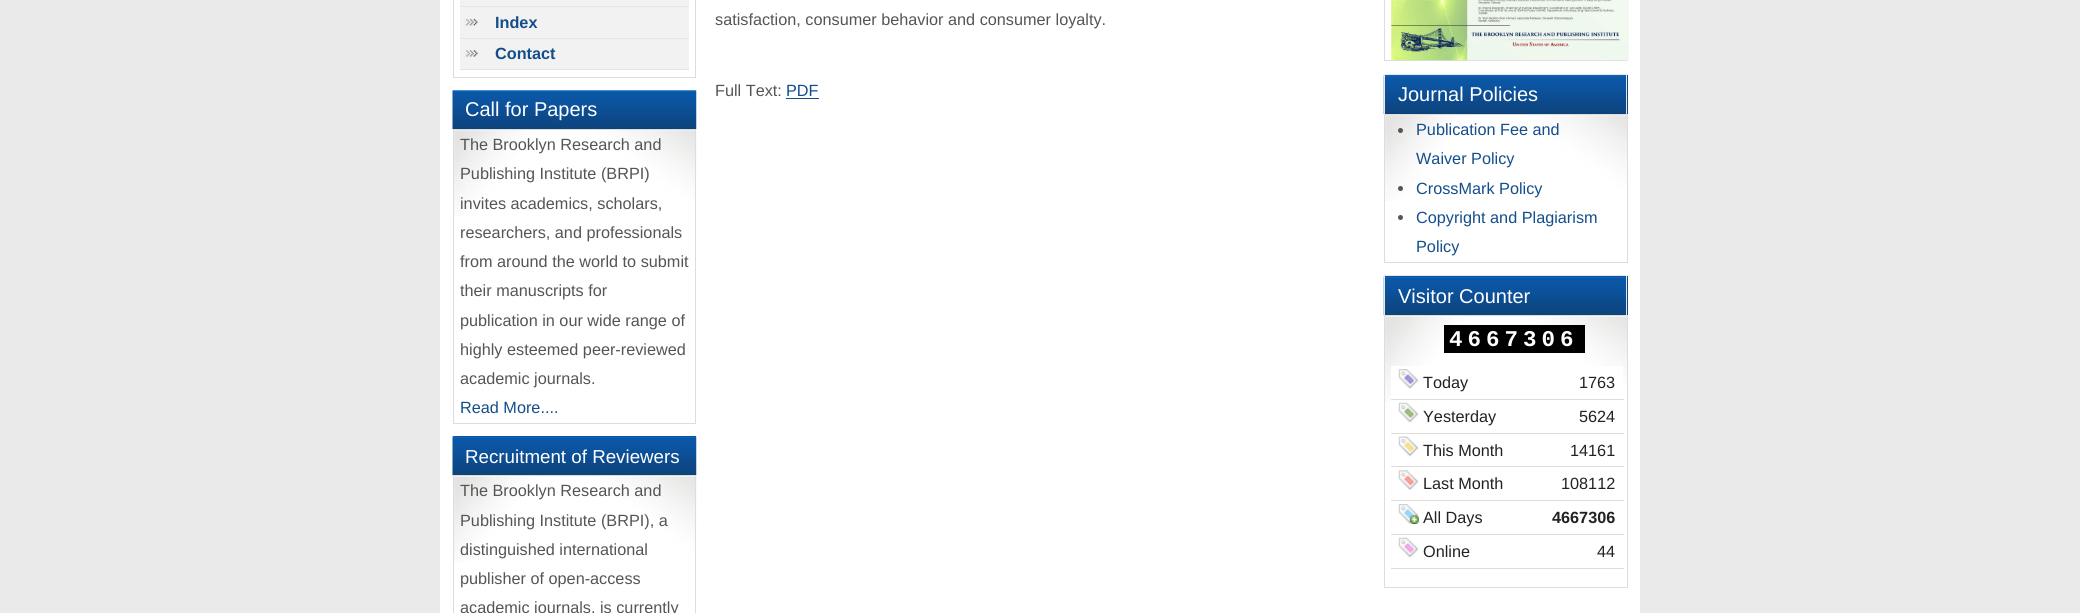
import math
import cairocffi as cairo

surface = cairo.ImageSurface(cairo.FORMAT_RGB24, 2080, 613)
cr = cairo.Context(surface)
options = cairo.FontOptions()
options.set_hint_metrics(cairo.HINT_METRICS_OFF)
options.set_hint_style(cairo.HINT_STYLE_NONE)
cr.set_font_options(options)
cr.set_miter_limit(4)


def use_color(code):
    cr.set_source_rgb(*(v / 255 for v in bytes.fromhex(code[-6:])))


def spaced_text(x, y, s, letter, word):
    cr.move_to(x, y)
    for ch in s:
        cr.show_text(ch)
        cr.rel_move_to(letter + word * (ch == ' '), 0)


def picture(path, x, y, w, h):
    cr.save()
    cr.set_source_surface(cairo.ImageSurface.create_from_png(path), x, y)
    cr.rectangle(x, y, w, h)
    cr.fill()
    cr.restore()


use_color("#eaeaea")
cr.paint()
use_color("#ffffff")
cr.rectangle(440, 0, 1200, 613)
cr.fill()
cr.rectangle(453.5, -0.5, 242, 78)
use_color("#dddddd")
cr.set_line_width(1)
cr.stroke()
use_color("#f2f2f2")
cr.rectangle(460, 0, 229, 69)
cr.fill()
use_color("#e4e4e4")
cr.rectangle(460, 6, 229, 1)
cr.fill()
cr.rectangle(460, 38, 229, 1)
cr.fill()
picture("img1.png", 464, 18, 14, 9)
cr.select_font_face("Liberation Sans", cairo.FONT_SLANT_NORMAL, cairo.FONT_WEIGHT_BOLD)
cr.set_font_size(16.25)
use_color("#134e8b")
cr.move_to(495, 28)
cr.show_text("Index")
use_color("#e4e4e4")
cr.rectangle(460, 69, 229, 1)
cr.fill()
picture("img2.png", 464, 50, 14, 8)
use_color("#134e8b")
cr.move_to(495, 59)
cr.show_text("Contact")
picture("img3.png", 452, 90, 245, 39)
cr.select_font_face("Liberation Sans")
cr.set_font_size(20)
use_color("#ffffff")
cr.move_to(465, 116)
cr.show_text("Call for Papers")
picture("img4.png", 454, 130, 243, 86)
cr.rectangle(453.5, 129.5, 242, 294)
use_color("#dddddd")
cr.stroke()
cr.set_font_size(16.25)
use_color("#555555")
cr.move_to(460, 150)
cr.show_text("The Brooklyn Research and")
cr.move_to(460, 179)
cr.show_text("Publishing Institute (BRPI)")
cr.move_to(460, 209)
cr.show_text("invites academics, scholars,")
cr.move_to(460, 238)
cr.show_text("researchers, and professionals")
cr.move_to(460, 267)
cr.show_text("from around the world to submit")
cr.move_to(460, 296)
cr.show_text("their manuscripts for")
cr.move_to(460, 326)
cr.show_text("publication in our wide range of")
cr.move_to(460, 355)
cr.show_text("highly esteemed peer-reviewed")
cr.move_to(460, 384)
cr.show_text("academic journals.")
use_color("#134e8b")
cr.move_to(460, 413)
cr.show_text("Read More....")
use_color("#0d4279")
cr.rectangle(453, 436, 243, 1)
cr.fill()
picture("img5.png", 452, 436, 245, 40)
cr.set_font_size(18.75)
use_color("#ffffff")
cr.move_to(465, 463)
cr.show_text("Recruitment of Reviewers")
picture("img6.png", 454, 476, 243, 86)
cr.rectangle(453.5, 475.5, 242, 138)
use_color("#dddddd")
cr.stroke()
cr.set_font_size(16.25)
use_color("#555555")
cr.move_to(460, 496)
cr.show_text("The Brooklyn Research and")
cr.move_to(460, 526)
cr.show_text("Publishing Institute (BRPI), a")
cr.move_to(460, 555)
cr.show_text("distinguished international")
cr.move_to(460, 584)
cr.show_text("publisher of open-access")
cr.move_to(460, 613)
cr.show_text("academic journals, is currently")
cr.move_to(715, 25)
cr.show_text("satisfaction, consumer behavior and consumer loyalty.")
cr.move_to(715, 96)
cr.show_text("Full Text:")
use_color("#134e8b")
cr.move_to(786, 96)
cr.show_text("PDF")
cr.rectangle(786, 98, 33, 1)
cr.fill()
cr.rectangle(1384.5, -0.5, 243, 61)
use_color("#dddddd")
cr.stroke()
picture("img7.png", 1391, 0, 238, 61)
use_color("#0d4279")
cr.rectangle(1385, 75, 243, 39)
cr.fill()
picture("img8.png", 1383, 75, 245, 39)
use_color("#e8e8e8")
cr.rectangle(1384, 74, 244, 1)
cr.fill()
cr.rectangle(1626, 74, 1, 40)
cr.fill()
cr.rectangle(1384, 74, 1, 40)
cr.fill()
cr.set_font_size(20)
use_color("#ffffff")
cr.move_to(1398, 101)
cr.show_text("Journal Policies")
picture("img9.png", 1385, 115, 242, 86)
cr.rectangle(1384.5, 114.5, 243, 148)
use_color("#dddddd")
cr.stroke()
use_color("#555555")
cr.arc(1400.5, 130.5, 2.5, 0, 2 * math.pi)
cr.fill()
cr.set_font_size(16.25)
use_color("#134e8b")
cr.move_to(1416, 135)
cr.show_text("Publication Fee and")
cr.move_to(1416, 164)
cr.show_text("Waiver Policy")
use_color("#555555")
cr.new_path()
cr.arc(1400.5, 188.5, 2.5, 0, 2 * math.pi)
cr.fill()
use_color("#134e8b")
cr.move_to(1416, 194)
cr.show_text("CrossMark Policy")
use_color("#555555")
cr.new_path()
cr.arc(1400.5, 217.5, 2.5, 0, 2 * math.pi)
cr.fill()
use_color("#134e8b")
cr.move_to(1416, 223)
cr.show_text("Copyright and Plagiarism")
cr.move_to(1416, 252)
cr.show_text("Policy")
use_color("#0d4279")
cr.rectangle(1385, 276, 243, 39)
cr.fill()
picture("img10.png", 1383, 276, 245, 40)
use_color("#e8e8e8")
cr.rectangle(1384, 275, 244, 1)
cr.fill()
cr.rectangle(1626, 275, 1, 40)
cr.fill()
cr.rectangle(1384, 275, 1, 40)
cr.fill()
cr.set_font_size(20)
use_color("#ffffff")
cr.move_to(1398, 303)
cr.show_text("Visitor Counter")
picture("img11.png", 1385, 316, 242, 86)
cr.rectangle(1384.5, 315.5, 243, 272)
use_color("#dddddd")
cr.stroke()
use_color("#000000")
cr.rectangle(1444, 325, 141, 28)
cr.fill()
cr.select_font_face("Liberation Mono", cairo.FONT_SLANT_NORMAL, cairo.FONT_WEIGHT_BOLD)
cr.set_font_size(22.5)
use_color("#ffffff")
spaced_text(1449, 346, "4667306", 5, 0)
cr.rectangle(1391, 366, 232, 36)
cr.fill()
picture("img12.png", 1398, 369, 21, 20)
cr.select_font_face("Liberation Sans")
cr.set_font_size(16.25)
use_color("#222222")
cr.move_to(1423, 388)
cr.show_text("Today")
use_color("#dddddd")
cr.rectangle(1391, 399, 233, 1)
cr.fill()
use_color("#222222")
cr.move_to(1579, 388)
cr.show_text("1763")
picture("img13.png", 1398, 402, 21, 21)
cr.move_to(1423, 422)
cr.show_text("Yesterday")
use_color("#dddddd")
cr.rectangle(1391, 433, 233, 1)
cr.fill()
use_color("#222222")
cr.move_to(1579, 422)
cr.show_text("5624")
picture("img14.png", 1398, 436, 21, 21)
cr.move_to(1423, 456)
cr.show_text("This Month")
use_color("#dddddd")
cr.rectangle(1391, 466, 233, 1)
cr.fill()
use_color("#222222")
cr.move_to(1570, 456)
cr.show_text("14161")
picture("img15.png", 1398, 470, 21, 20)
cr.move_to(1423, 489)
cr.show_text("Last Month")
use_color("#dddddd")
cr.rectangle(1391, 500, 233, 1)
cr.fill()
use_color("#222222")
cr.move_to(1561, 489)
cr.show_text("108112")
picture("img16.png", 1398, 504, 21, 20)
cr.move_to(1423, 523)
cr.show_text("All Days")
use_color("#dddddd")
cr.rectangle(1391, 534, 233, 1)
cr.fill()
cr.select_font_face("Liberation Sans", cairo.FONT_SLANT_NORMAL, cairo.FONT_WEIGHT_BOLD)
use_color("#222222")
cr.move_to(1552, 523)
cr.show_text("4667306")
picture("img17.png", 1398, 537, 21, 21)
cr.select_font_face("Liberation Sans")
cr.move_to(1423, 557)
cr.show_text("Online")
use_color("#dddddd")
cr.rectangle(1391, 568, 233, 1)
cr.fill()
use_color("#222222")
cr.move_to(1597, 557)
cr.show_text("44")
surface.write_to_png("result.png")
